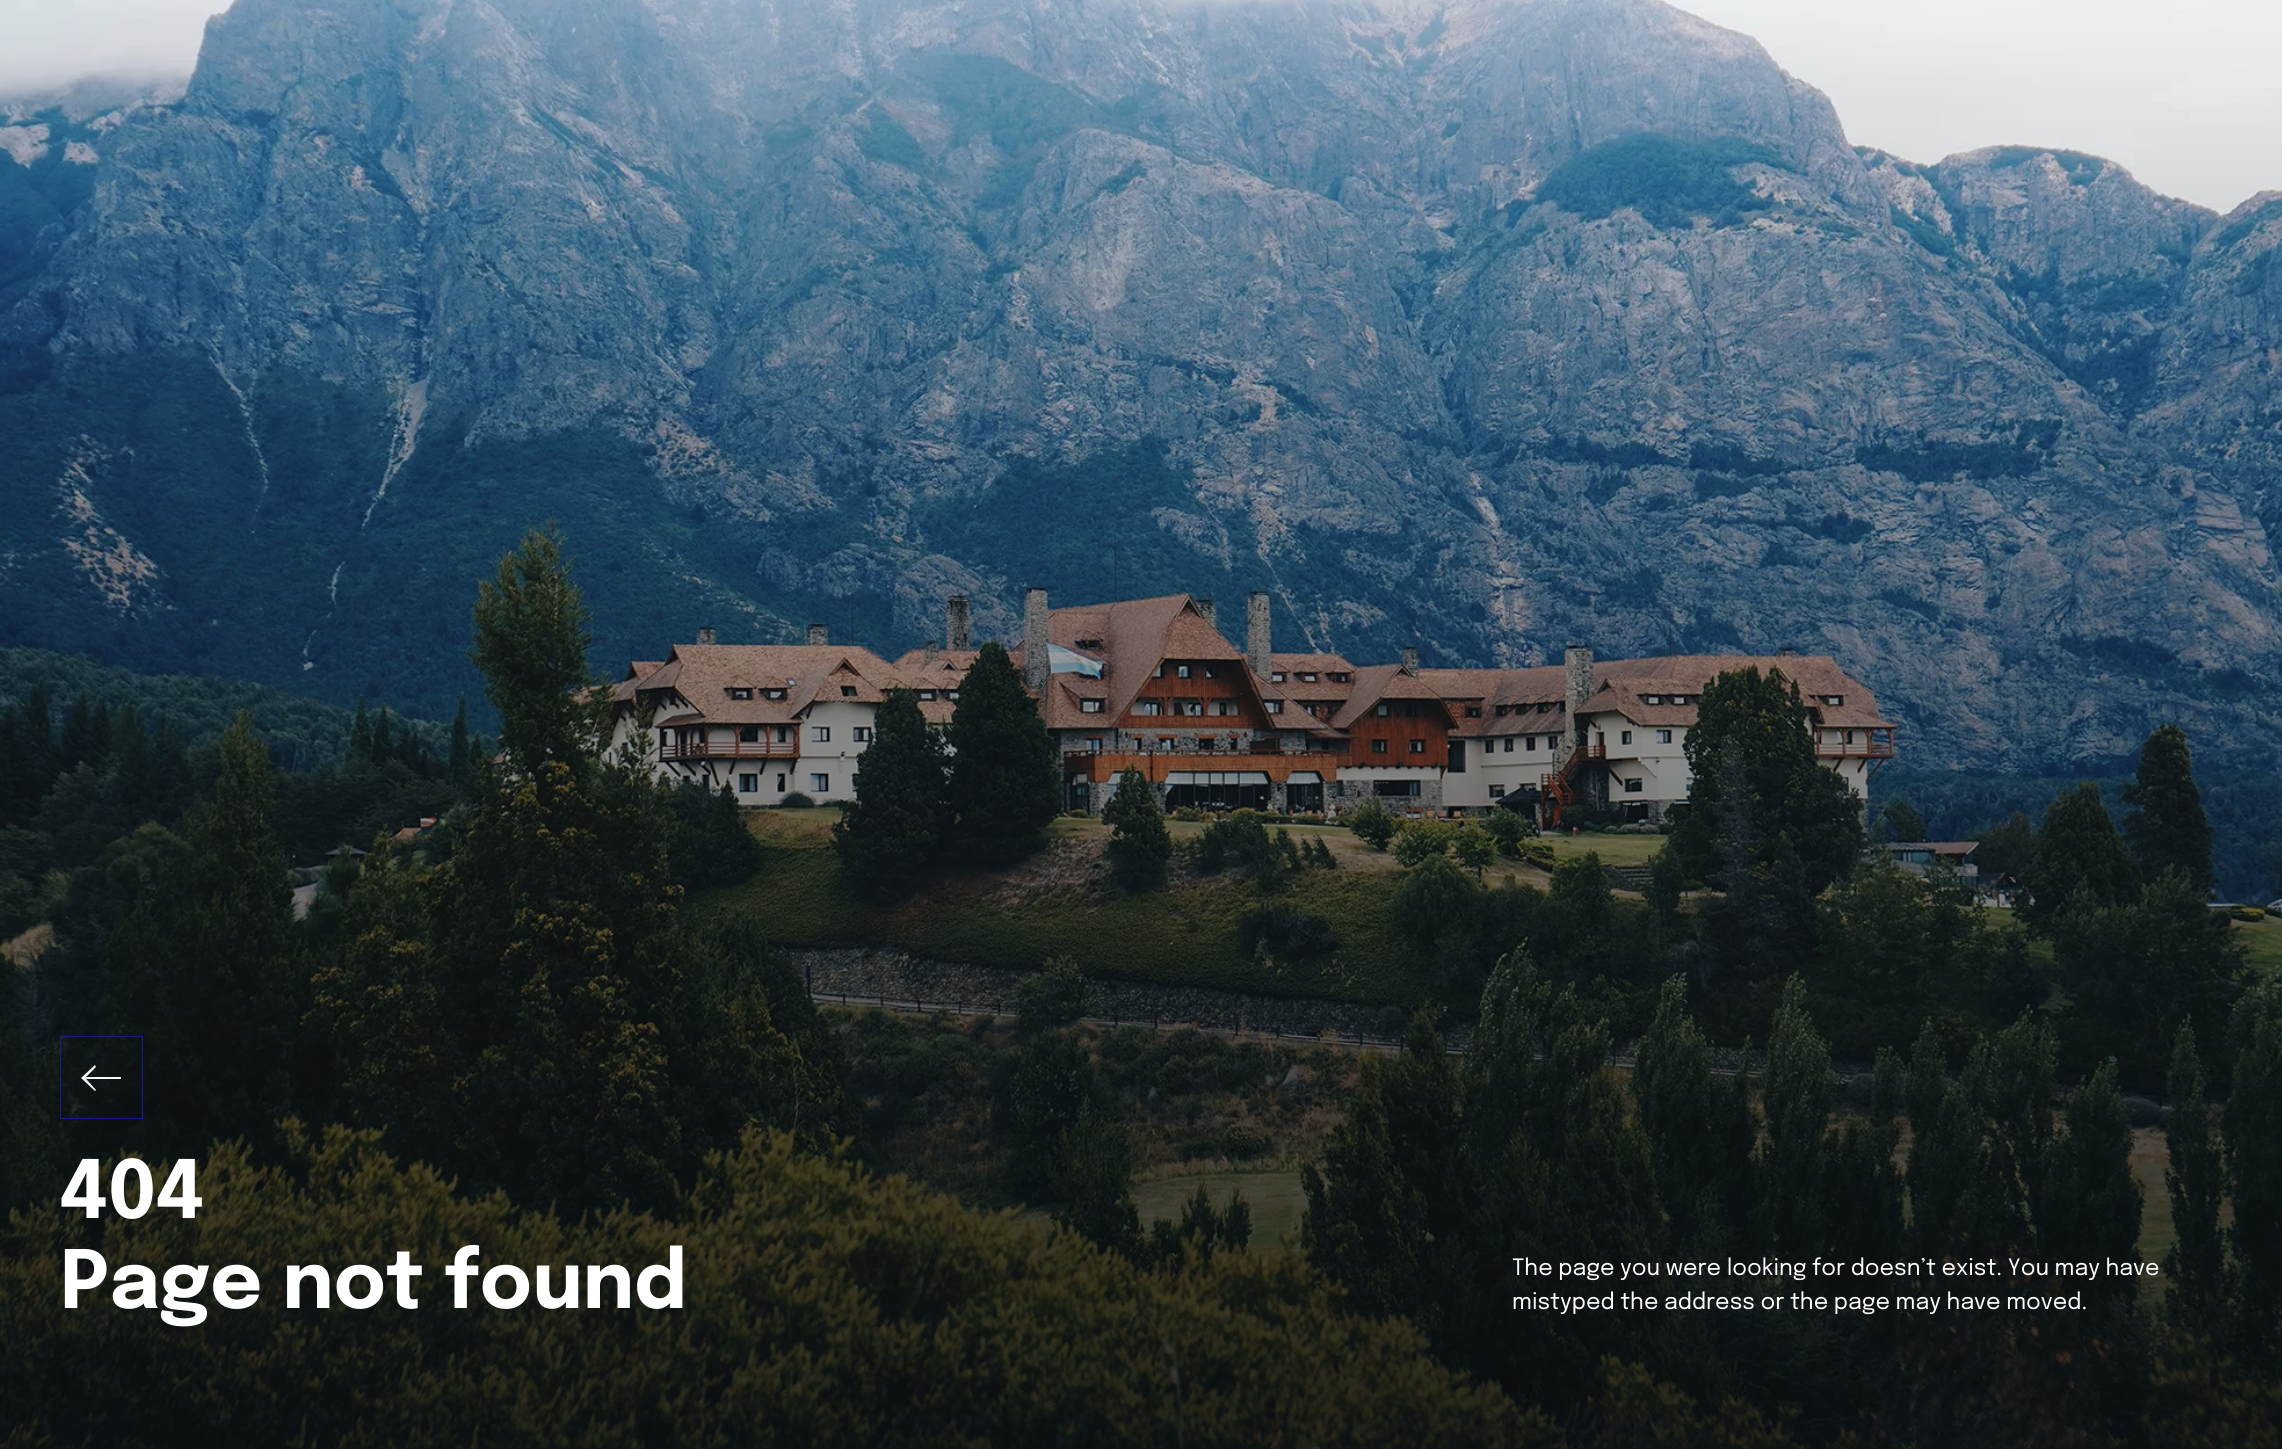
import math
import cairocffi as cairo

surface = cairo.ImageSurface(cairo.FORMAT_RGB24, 2282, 1449)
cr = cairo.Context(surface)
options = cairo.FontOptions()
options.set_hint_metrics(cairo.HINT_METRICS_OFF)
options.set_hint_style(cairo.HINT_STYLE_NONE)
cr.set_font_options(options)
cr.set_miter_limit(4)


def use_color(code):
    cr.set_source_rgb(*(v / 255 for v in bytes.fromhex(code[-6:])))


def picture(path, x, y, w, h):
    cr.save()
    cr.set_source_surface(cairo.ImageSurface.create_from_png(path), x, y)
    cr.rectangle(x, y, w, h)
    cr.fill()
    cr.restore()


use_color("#ffffff")
cr.paint()
picture("img1.png", 0, 0, 2282, 1449)
cr.rectangle(60.5, 1036.5, 82, 82)
cr.set_source_rgba(0.09, 0.11, 0.561, 0.97)
cr.set_line_width(1)
cr.stroke()
cr.set_source_rgba(1, 1, 1, 0.97)
cr.new_path()
cr.move_to(95, 1091)
cr.line_to(81, 1078)
cr.line_to(95, 1065)
cr.line_to(96, 1067)
cr.line_to(86, 1077)
cr.line_to(121, 1077)
cr.line_to(121, 1079)
cr.line_to(86, 1079)
cr.line_to(96, 1090)
cr.close_path()
cr.fill()
cr.select_font_face("Epilogue", cairo.FONT_SLANT_NORMAL, cairo.FONT_WEIGHT_BOLD)
cr.set_font_size(80)
use_color("#ffffff")
cr.move_to(60, 1218)
cr.show_text("404")
cr.move_to(60, 1308)
cr.show_text("Page not found")
cr.select_font_face("Epilogue")
cr.set_font_size(22.5)
cr.move_to(1512, 1275)
cr.show_text("The page you were looking for doesn’t exist. You may have")
cr.move_to(1512, 1309)
cr.show_text("mistyped the address or the page may have moved.")
surface.write_to_png("result.png")
